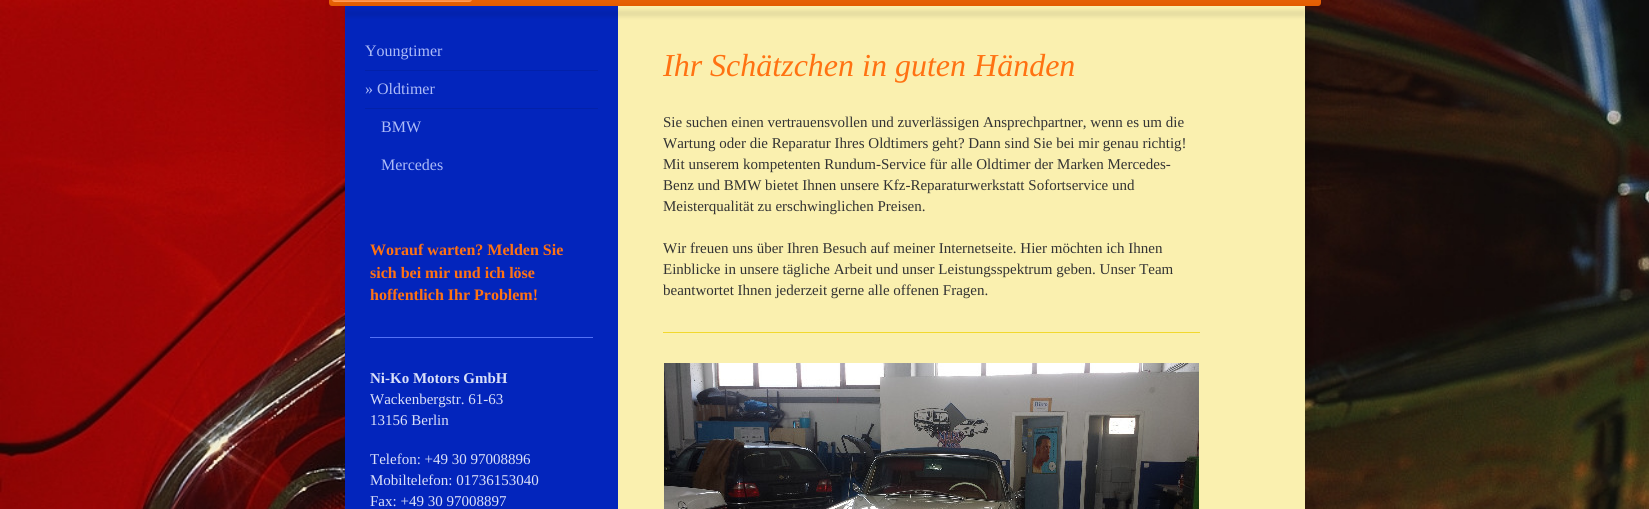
import math
import cairocffi as cairo

surface = cairo.ImageSurface(cairo.FORMAT_RGB24, 1649, 509)
cr = cairo.Context(surface)
options = cairo.FontOptions()
options.set_hint_metrics(cairo.HINT_METRICS_OFF)
options.set_hint_style(cairo.HINT_STYLE_NONE)
cr.set_font_options(options)
cr.set_miter_limit(4)


def use_color(code):
    cr.set_source_rgb(*(v / 255 for v in bytes.fromhex(code[-6:])))


def round_rect(x, y, w, h, r):
    cr.new_sub_path()
    for i, (u, v) in enumerate([(x + w - r, y + h - r), (x + r, y + h - r), (x + r, y + r), (x + w - r, y + r)]):
        cr.arc(u, v, r, i * math.pi / 2, (i + 1) * math.pi / 2)
    cr.close_path()


def shadow(x, y, w, h, r, blur, alpha):
    cr.push_group_with_content(cairo.CONTENT_ALPHA)
    cr.set_operator(cairo.OPERATOR_SOURCE)
    for i in range(15, -16, -2):
        e = blur * i / 6
        if min(w, h) + 2 * e > 0:
            cr.set_source_rgba(0, 0, 0, alpha * math.erfc((i - 1) / 8.5) / 2)
            round_rect(x - e, y - e, w + 2 * e, h + 2 * e, max(0, min(r + e + blur * .6, min(w, h) / 2 + e)))
            cr.fill()
    cr.mask(cr.pop_group())


def picture(path, x, y, w, h):
    cr.save()
    cr.set_source_surface(cairo.ImageSurface.create_from_png(path), x, y)
    cr.rectangle(x, y, w, h)
    cr.fill()
    cr.restore()


use_color("#ffffff")
cr.paint()
picture("img1.png", 0, 0, 1649, 509)
use_color("#000000")
shadow(355, -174, 100, 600, 0, 60, 0.15)
shadow(1215, -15, 100, 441, 0, 5, 0.08)
gradient = cairo.LinearGradient(329, -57, 329, 6)
gradient.add_color_stop_rgba(0, 1, 0.553, 0.251, 1)
gradient.add_color_stop_rgba(1, 0.89, 0.361, 0, 1)
cr.set_source(gradient)
round_rect(329, -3, 992, 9, 3)
cr.fill()
gradient = cairo.LinearGradient(332, 2, 332, -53)
gradient.add_color_stop_rgba(0, 1, 0.518, 0.192, 1)
gradient.add_color_stop_rgba(1, 0.89, 0.361, 0, 1)
cr.set_source(gradient)
round_rect(332, -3, 140, 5, 3)
cr.fill()
cr.set_source_rgba(1, 1, 1, 0.08)
cr.new_path()
cr.move_to(332, -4)
cr.line_to(332, -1)
cr.curve_to(332, 1, 333, 2, 335, 2)
cr.line_to(469, 2)
cr.curve_to(471, 2, 472, 1, 472, -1)
cr.line_to(472, -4)
cr.curve_to(472, -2, 471, -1, 469, -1)
cr.line_to(335, -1)
cr.curve_to(333, -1, 332, -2, 332, -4)
cr.close_path()
cr.fill()
cr.set_source_rgba(1, 1, 1, 0.1)
cr.new_path()
cr.move_to(332, -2)
cr.line_to(332, -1)
cr.curve_to(332, 1, 333, 2, 335, 2)
cr.line_to(469, 2)
cr.curve_to(471, 2, 472, 1, 472, -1)
cr.line_to(472, -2)
cr.curve_to(472, 0, 471, 1, 469, 1)
cr.line_to(335, 1)
cr.curve_to(333, 1, 332, 0, 332, -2)
cr.close_path()
cr.fill()
use_color("#faf0af")
cr.rectangle(618, 6, 687, 503)
cr.fill()
use_color("#0325bc")
cr.rectangle(345, 6, 273, 503)
cr.fill()
use_color("#000000")
shadow(345, 10, 960, 7, 0, 2, 0.08)
use_color("#0321a9")
cr.rectangle(365, 70, 233, 1)
cr.fill()
cr.select_font_face("Liberation Serif")
cr.set_font_size(16)
use_color("#adbbf7")
cr.move_to(365, 56)
cr.show_text("Youngtimer")
use_color("#0321a9")
cr.rectangle(365, 108, 233, 1)
cr.fill()
use_color("#adbbf7")
cr.move_to(365, 94)
cr.show_text("» Oldtimer")
cr.move_to(381, 132)
cr.show_text("BMW")
cr.move_to(381, 170)
cr.show_text("Mercedes")
cr.select_font_face("Liberation Serif", cairo.FONT_SLANT_NORMAL, cairo.FONT_WEIGHT_BOLD)
use_color("#ff7212")
cr.move_to(370, 255)
cr.show_text("Worauf warten? Melden Sie")
cr.move_to(370, 278)
cr.show_text("sich bei mir und ich löse")
cr.move_to(370, 300)
cr.show_text("hoffentlich Ihr Problem!")
use_color("#5371f6")
cr.rectangle(370, 337, 223, 1)
cr.fill()
cr.set_font_size(15)
use_color("#dae0f8")
cr.move_to(370, 383)
cr.show_text("Ni-Ko Motors GmbH")
cr.select_font_face("Liberation Serif")
cr.move_to(370, 404)
cr.show_text("Wackenbergstr. 61-63")
cr.move_to(370, 425)
cr.show_text("13156 Berlin")
cr.move_to(370, 464)
cr.show_text("Telefon: +49 30 97008896")
cr.move_to(370, 485)
cr.show_text("Mobiltelefon: 01736153040")
cr.move_to(370, 506)
cr.show_text("Fax: +49 30 97008897")
cr.select_font_face("Liberation Serif", cairo.FONT_SLANT_ITALIC)
cr.set_font_size(32)
use_color("#ff7212")
cr.move_to(663, 76)
cr.show_text("Ihr Schätzchen in guten Händen")
cr.select_font_face("Liberation Serif")
cr.set_font_size(15)
use_color("#333333")
cr.move_to(663, 127)
cr.show_text("Sie suchen einen vertrauensvollen und zuverlässigen Ansprechpartner, wenn es um die")
cr.move_to(663, 148)
cr.show_text("Wartung oder die Reparatur Ihres Oldtimers geht? Dann sind Sie bei mir genau richtig!")
cr.move_to(663, 169)
cr.show_text("Mit unserem kompetenten Rundum-Service für alle Oldtimer der Marken Mercedes-")
cr.move_to(663, 190)
cr.show_text("Benz und BMW bietet Ihnen unsere Kfz-Reparaturwerkstatt Sofortservice und")
cr.move_to(663, 211)
cr.show_text("Meisterqualität zu erschwinglichen Preisen.")
cr.move_to(663, 253)
cr.show_text("Wir freuen uns über Ihren Besuch auf meiner Internetseite. Hier möchten ich Ihnen")
cr.move_to(663, 274)
cr.show_text("Einblicke in unsere tägliche Arbeit und unser Leistungsspektrum geben. Unser Team")
cr.move_to(663, 295)
cr.show_text("beantwortet Ihnen jederzeit gerne alle offenen Fragen.")
use_color("#f2d82d")
cr.rectangle(663, 332, 537, 1)
cr.fill()
picture("img2.png", 664, 363, 535, 146)
surface.write_to_png("result.png")
